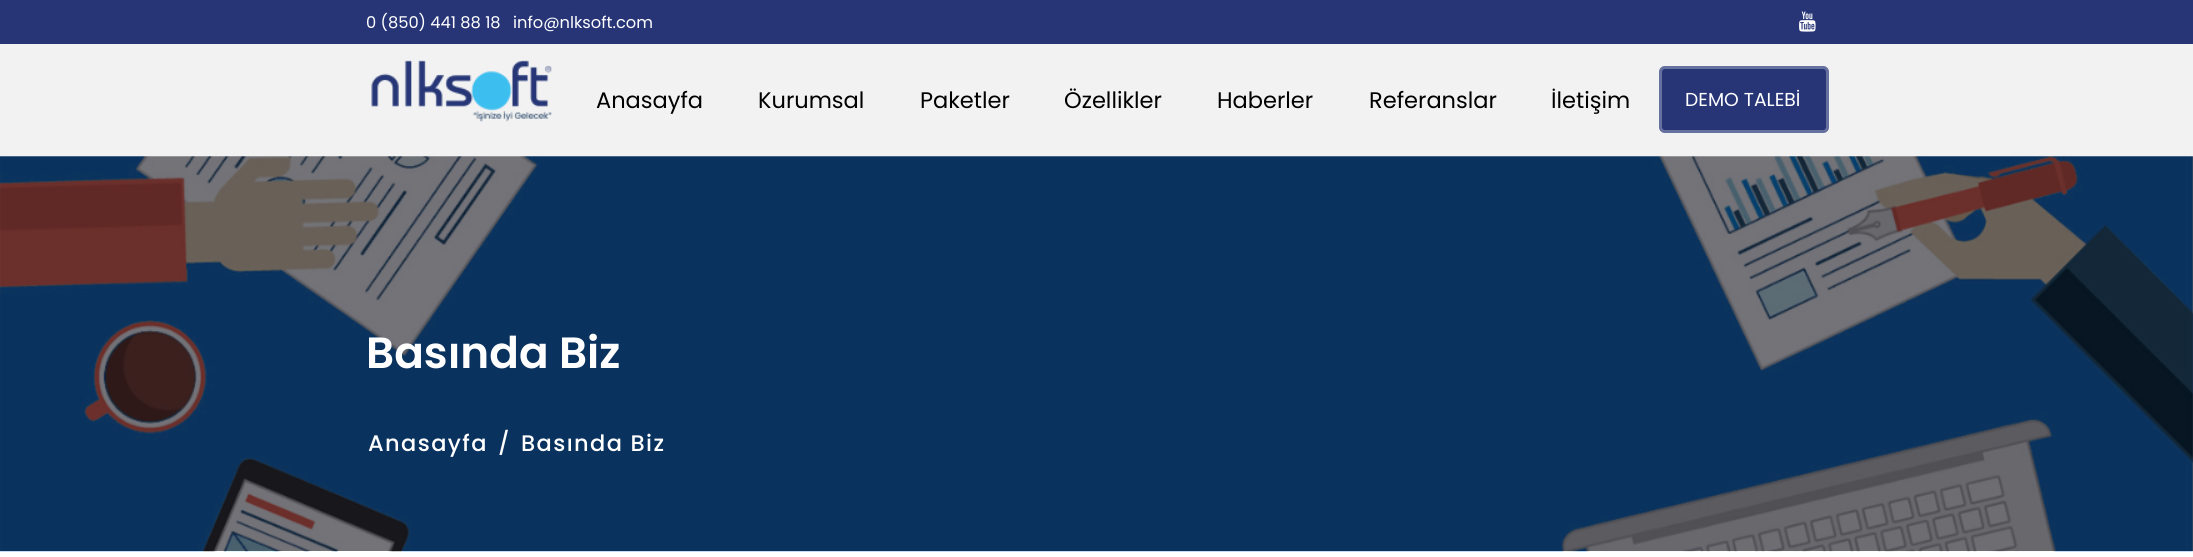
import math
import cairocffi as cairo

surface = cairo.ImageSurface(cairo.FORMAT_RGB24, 2193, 557)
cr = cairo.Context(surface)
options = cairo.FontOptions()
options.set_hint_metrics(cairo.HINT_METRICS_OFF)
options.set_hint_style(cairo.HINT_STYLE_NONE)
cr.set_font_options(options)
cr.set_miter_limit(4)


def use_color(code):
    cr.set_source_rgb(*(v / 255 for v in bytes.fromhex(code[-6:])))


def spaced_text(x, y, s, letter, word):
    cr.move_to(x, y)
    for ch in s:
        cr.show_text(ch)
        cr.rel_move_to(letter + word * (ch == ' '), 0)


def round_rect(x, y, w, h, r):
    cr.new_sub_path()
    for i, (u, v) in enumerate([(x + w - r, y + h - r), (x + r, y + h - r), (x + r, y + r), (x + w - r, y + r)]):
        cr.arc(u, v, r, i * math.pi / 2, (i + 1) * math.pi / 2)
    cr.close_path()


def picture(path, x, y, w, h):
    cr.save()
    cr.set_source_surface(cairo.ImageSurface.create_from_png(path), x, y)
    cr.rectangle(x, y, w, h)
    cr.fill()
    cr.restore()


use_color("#ffffff")
cr.paint()
use_color("#f2f2f2")
cr.rectangle(0, 44, 2193, 112)
cr.fill()
use_color("#273577")
cr.rectangle(0, 0, 2193, 44)
cr.fill()
cr.select_font_face("Poppins")
cr.set_font_size(16.25)
use_color("#ffffff")
cr.move_to(366, 28)
cr.show_text("0 (850) 441 88 18")
cr.move_to(513, 28)
cr.show_text("info@nlksoft.com")
picture("img1.png", 1799, 11, 17, 21)
picture("img2.png", 371, 60, 181, 62)
cr.set_font_size(22.5)
use_color("#000000")
cr.move_to(596, 108)
cr.show_text("Anasayfa")
cr.move_to(758, 108)
cr.show_text("Kurumsal")
cr.move_to(920, 108)
cr.show_text("Paketler")
cr.move_to(1064, 108)
cr.show_text("Özellikler")
cr.move_to(1217, 108)
cr.show_text("Haberler")
cr.move_to(1369, 108)
cr.show_text("Referanslar")
cr.move_to(1551, 108)
cr.show_text("İletişim")
use_color("#273577")
round_rect(1659, 66, 170, 67, 6)
cr.fill()
round_rect(1660.5, 67.5, 167, 64, 4.5)
cr.set_source_rgba(1, 1, 1, 0.3)
cr.set_line_width(3)
cr.stroke()
cr.set_font_size(18.75)
use_color("#ffffff")
cr.move_to(1685, 106)
cr.show_text("DEMO TALEBİ")
picture("img3.png", 0, 156, 2193, 396)
cr.select_font_face("Poppins SemiBold")
cr.set_font_size(43.75)
cr.move_to(366, 368)
cr.show_text("Basında Biz")
cr.select_font_face("Poppins Medium")
cr.set_font_size(22.5)
spaced_text(368, 451, "Anasayfa", 1.4, 0)
spaced_text(498, 451, "/", 1.4, 0)
spaced_text(521, 451, "Basında Biz", 1.4, 0)
surface.write_to_png("result.png")
